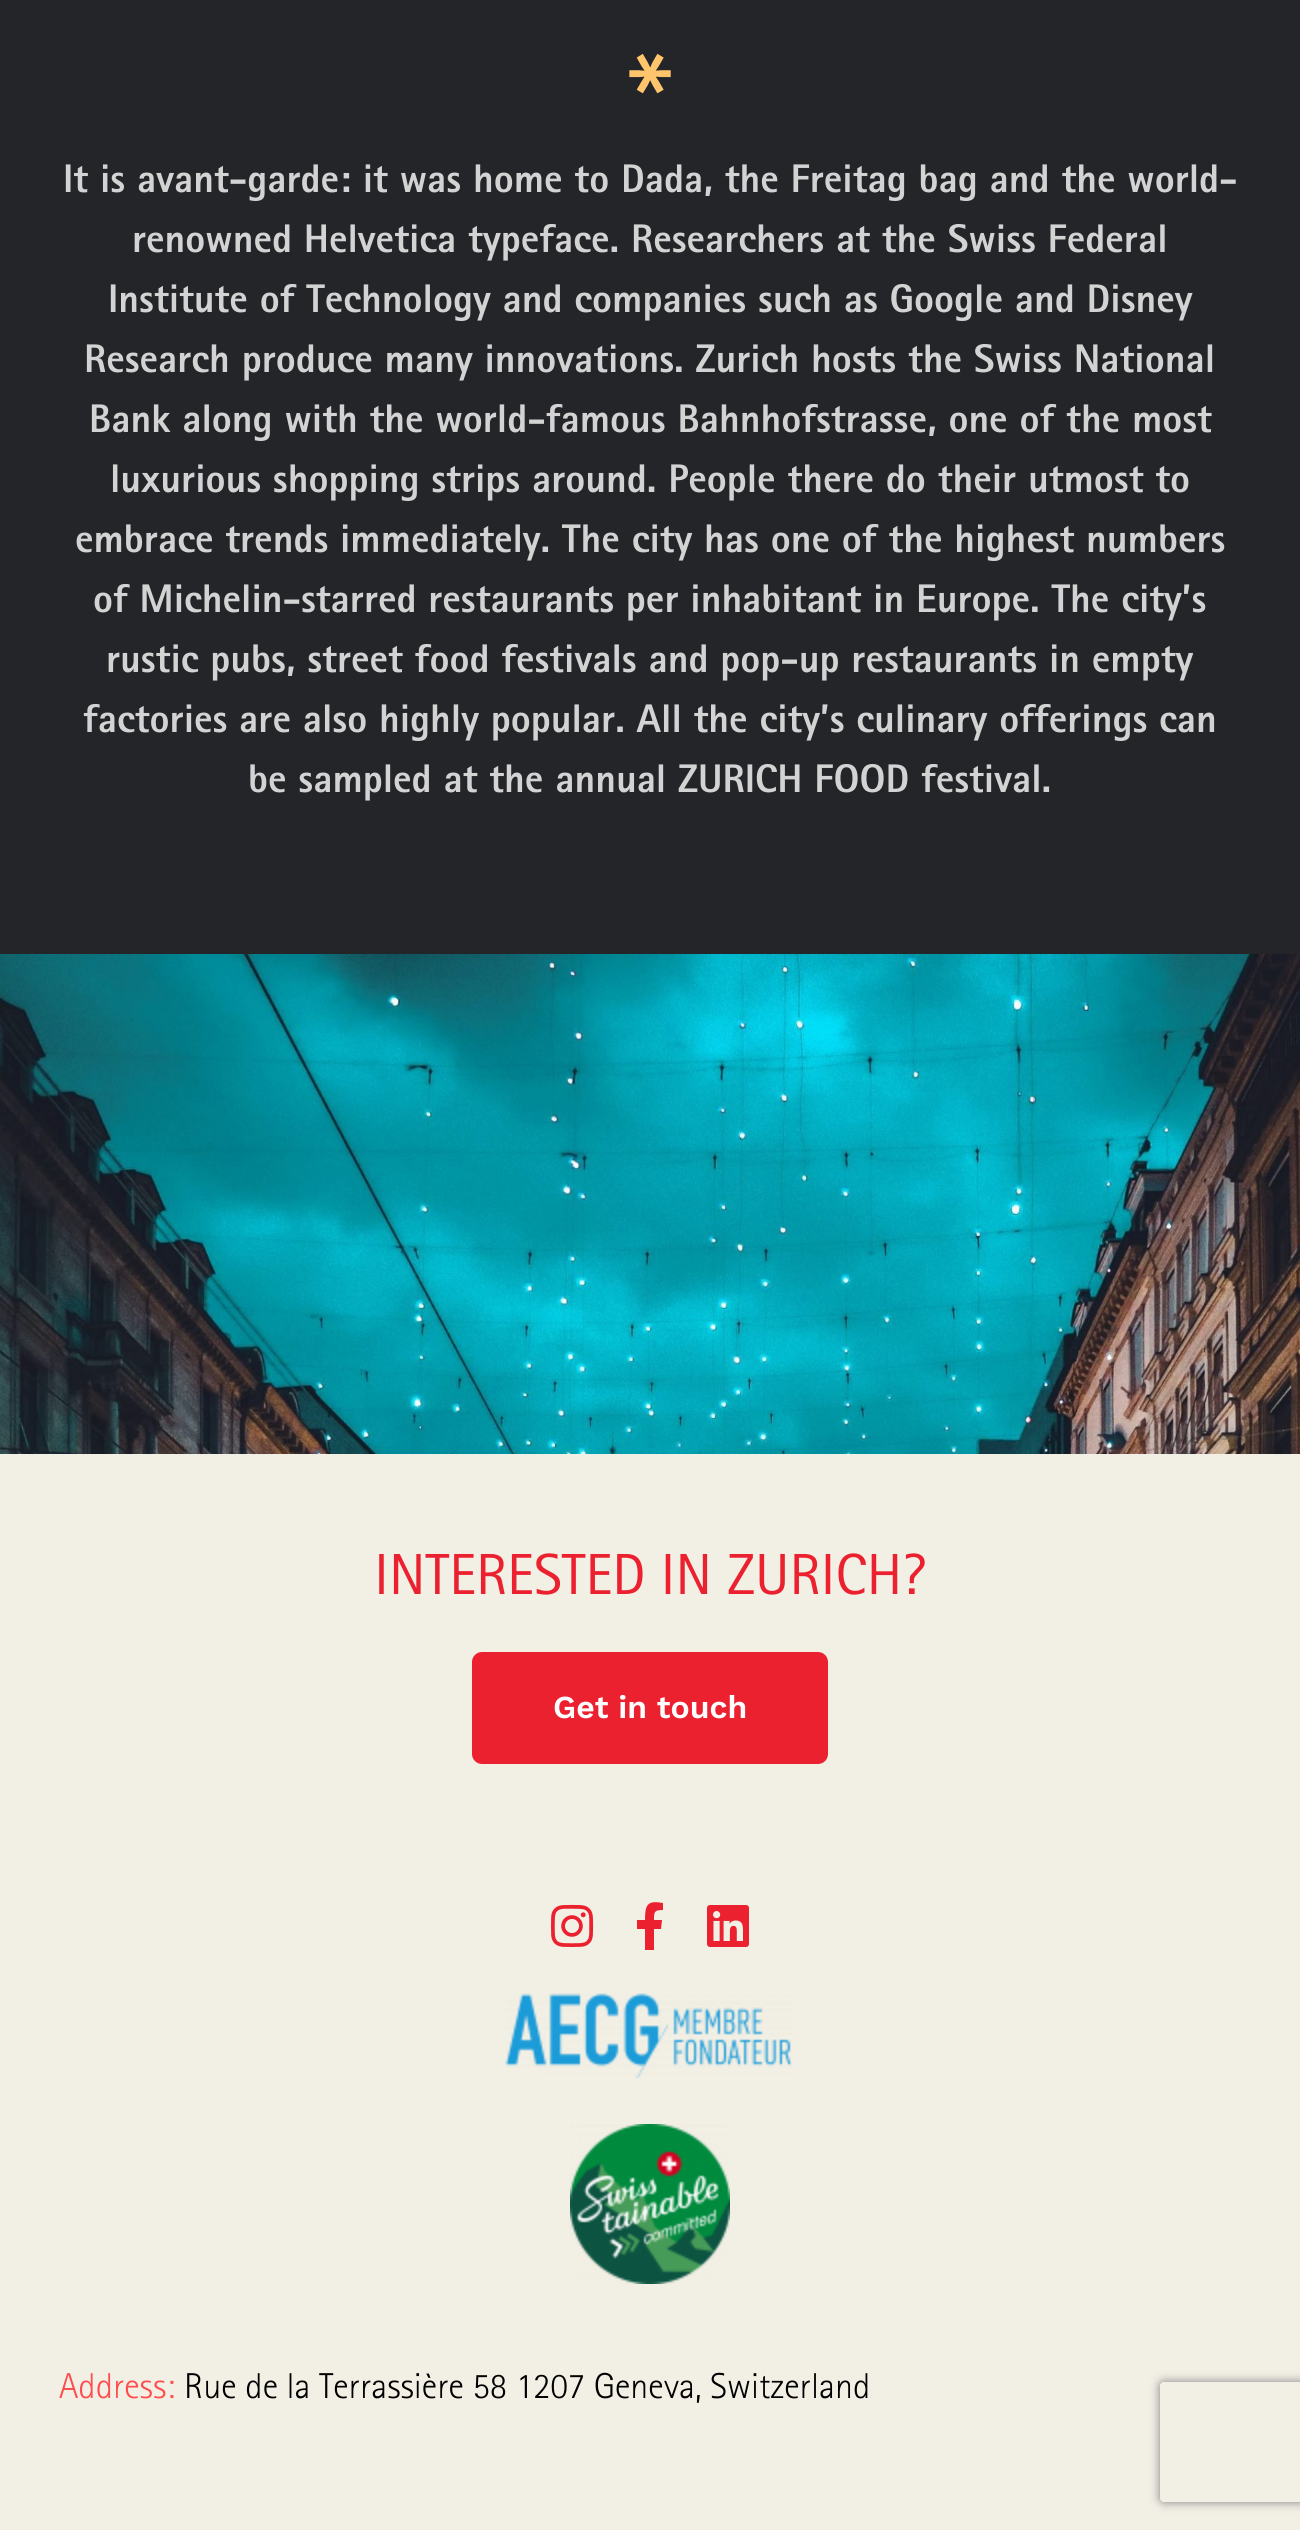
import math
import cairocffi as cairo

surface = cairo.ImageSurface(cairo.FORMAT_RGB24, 1300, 2530)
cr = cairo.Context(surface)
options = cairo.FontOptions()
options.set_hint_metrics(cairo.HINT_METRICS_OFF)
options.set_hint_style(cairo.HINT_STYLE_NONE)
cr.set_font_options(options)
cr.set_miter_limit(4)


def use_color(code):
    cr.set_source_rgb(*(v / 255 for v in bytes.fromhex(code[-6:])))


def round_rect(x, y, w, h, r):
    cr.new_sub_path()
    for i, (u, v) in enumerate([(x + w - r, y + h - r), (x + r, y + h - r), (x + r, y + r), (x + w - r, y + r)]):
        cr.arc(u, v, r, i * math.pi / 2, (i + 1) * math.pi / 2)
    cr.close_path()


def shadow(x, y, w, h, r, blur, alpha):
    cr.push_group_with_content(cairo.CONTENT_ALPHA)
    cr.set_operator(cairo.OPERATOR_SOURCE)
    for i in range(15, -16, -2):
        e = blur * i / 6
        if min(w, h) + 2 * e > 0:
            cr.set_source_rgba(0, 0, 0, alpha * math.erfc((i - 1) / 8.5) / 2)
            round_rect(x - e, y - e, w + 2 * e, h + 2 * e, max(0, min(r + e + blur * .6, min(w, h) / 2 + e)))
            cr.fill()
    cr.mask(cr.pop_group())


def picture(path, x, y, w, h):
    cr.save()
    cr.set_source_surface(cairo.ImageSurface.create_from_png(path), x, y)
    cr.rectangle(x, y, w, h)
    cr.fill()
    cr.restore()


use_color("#ffffff")
cr.paint()
gradient = cairo.LinearGradient(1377, -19, -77, 821)
gradient.add_color_stop_rgba(1, 0.137, 0.145, 0.157, 1)
gradient.add_color_stop_rgba(1, 0.263, 0.251, 0.243, 1)
cr.set_source(gradient)
cr.rectangle(0, 0, 1300, 954)
cr.fill()
cr.select_font_face("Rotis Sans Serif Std")
cr.set_font_size(140)
use_color("#ffc56d")
cr.move_to(628, 152)
cr.show_text("*")
cr.select_font_face("Rotis Sans Serif Std ExtraBold")
cr.set_font_size(40)
use_color("#d3d3d4")
cr.move_to(63, 192)
cr.show_text("It is avant-garde: it was home to Dada, the Freitag bag and the world-")
cr.move_to(132, 252)
cr.show_text("renowned Helvetica typeface. Researchers at the Swiss Federal")
cr.move_to(108, 312)
cr.show_text("Institute of Technology and companies such as Google and Disney")
cr.move_to(84, 372)
cr.show_text("Research produce many innovations. Zurich hosts the Swiss National")
cr.move_to(89, 432)
cr.show_text("Bank along with the world-famous Bahnhofstrasse, one of the most")
cr.move_to(110, 492)
cr.show_text("luxurious shopping strips around. People there do their utmost to")
cr.move_to(75, 552)
cr.show_text("embrace trends immediately. The city has one of the highest numbers")
cr.move_to(93, 612)
cr.show_text("of Michelin-starred restaurants per inhabitant in Europe. The city’s")
cr.move_to(106, 672)
cr.show_text("rustic pubs, street food festivals and pop-up restaurants in empty")
cr.move_to(83, 732)
cr.show_text("factories are also highly popular. All the city’s culinary offerings can")
cr.move_to(248, 792)
cr.show_text("be sampled at the annual ZURICH FOOD festival.")
picture("img1.png", 0, 954, 1300, 500)
use_color("#f2efe5")
cr.rectangle(0, 1454, 1300, 1076)
cr.fill()
cr.select_font_face("Rotis Sans Serif Std")
cr.set_font_size(58)
use_color("#ec2130")
cr.move_to(374, 1594)
cr.show_text("INTERESTED IN ZURICH?")
round_rect(472, 1652, 356, 112, 10)
cr.fill()
cr.select_font_face("Work Sans SemiBold")
cr.set_font_size(32)
use_color("#ffffff")
cr.move_to(553, 1718)
cr.show_text("Get in touch")
picture("img2.png", 551, 1904, 43, 43)
use_color("#ec2130")
cr.new_path()
cr.move_to(661, 1929)
cr.line_to(654, 1929)
cr.line_to(654, 1950)
cr.line_to(645, 1950)
cr.line_to(645, 1929)
cr.line_to(637, 1929)
cr.line_to(637, 1920)
cr.line_to(645, 1920)
cr.curve_to(645, 1905, 647, 1900, 663, 1903)
cr.line_to(663, 1910)
cr.curve_to(654, 1910, 654, 1912, 654, 1920)
cr.line_to(662, 1920)
cr.close_path()
cr.fill()
picture("img3.png", 707, 1905, 42, 42)
picture("img4.png", 505, 1993, 288, 86)
picture("img5.png", 570, 2124, 160, 160)
cr.select_font_face("Rotis Sans Serif Std Light")
cr.set_font_size(36)
use_color("#ff4c4c")
cr.move_to(59, 2398)
cr.show_text("Address:")
use_color("#000000")
cr.move_to(184, 2398)
cr.show_text("Rue de la Terrassière 58 1207 Geneva, Switzerland")
cr.save()
cr.set_fill_rule(cairo.FILL_RULE_EVEN_ODD)
cr.new_path()
cr.move_to(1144, 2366)
cr.line_to(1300, 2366)
cr.line_to(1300, 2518)
cr.line_to(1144, 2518)
cr.close_path()
cr.move_to(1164, 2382)
cr.line_to(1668, 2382)
cr.curve_to(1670, 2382, 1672, 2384, 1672, 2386)
cr.line_to(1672, 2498)
cr.curve_to(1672, 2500, 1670, 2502, 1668, 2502)
cr.line_to(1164, 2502)
cr.curve_to(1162, 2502, 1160, 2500, 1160, 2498)
cr.line_to(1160, 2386)
cr.curve_to(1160, 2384, 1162, 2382, 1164, 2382)
cr.close_path()
cr.clip()
use_color("#808080")
shadow(1160, 2382, 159, 120, 4, 5, 1)
cr.restore()
surface.write_to_png("result.png")
